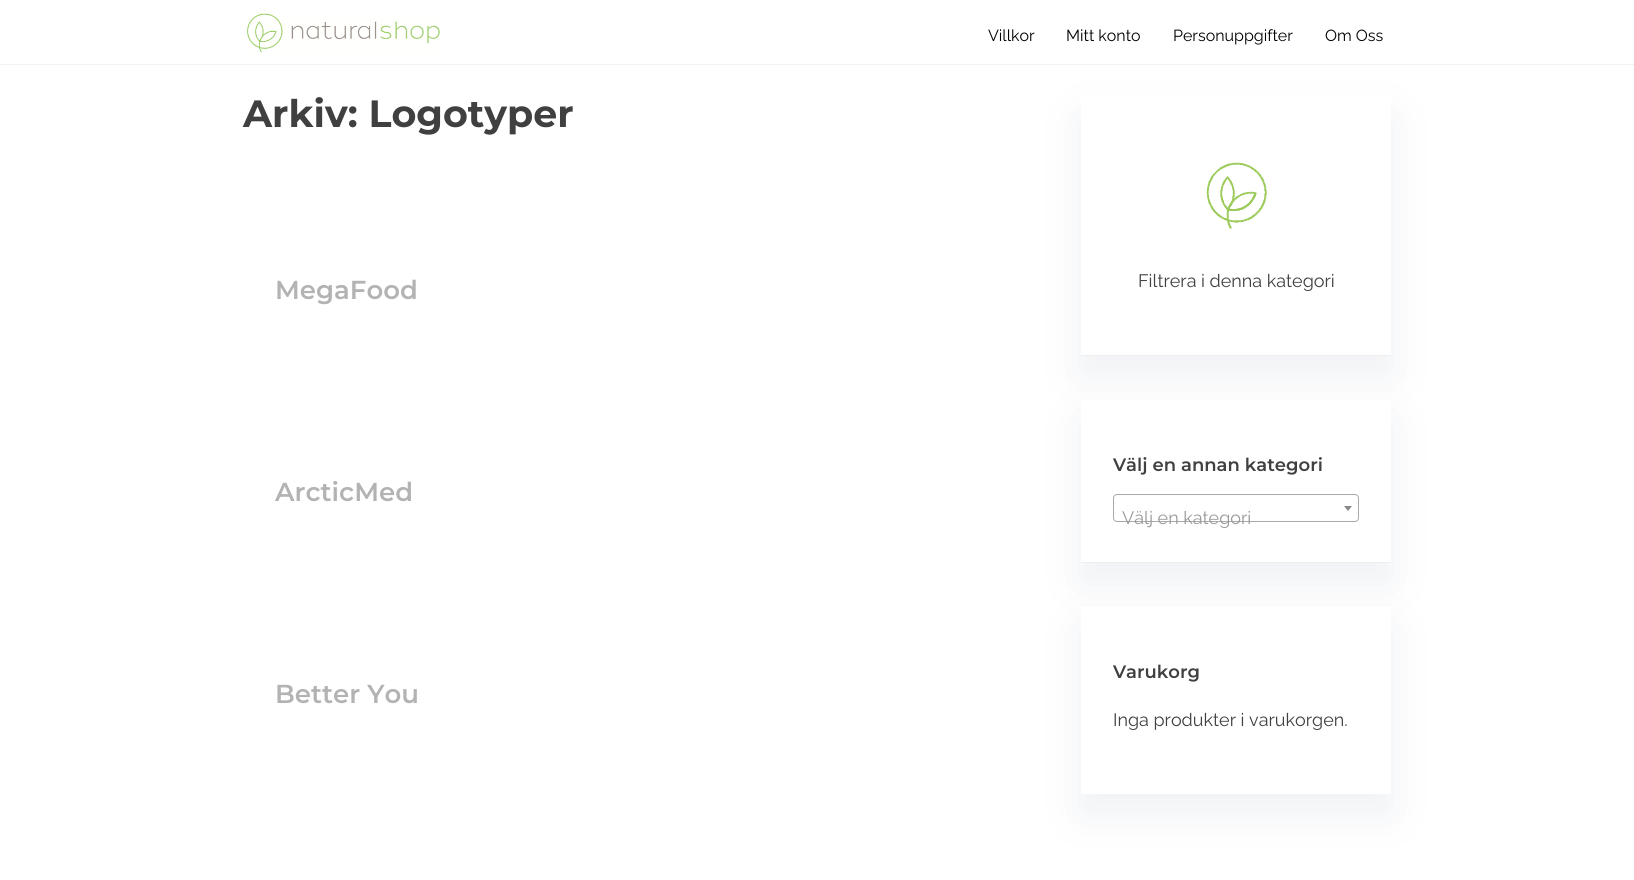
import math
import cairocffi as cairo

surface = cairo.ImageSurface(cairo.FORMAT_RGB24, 1634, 880)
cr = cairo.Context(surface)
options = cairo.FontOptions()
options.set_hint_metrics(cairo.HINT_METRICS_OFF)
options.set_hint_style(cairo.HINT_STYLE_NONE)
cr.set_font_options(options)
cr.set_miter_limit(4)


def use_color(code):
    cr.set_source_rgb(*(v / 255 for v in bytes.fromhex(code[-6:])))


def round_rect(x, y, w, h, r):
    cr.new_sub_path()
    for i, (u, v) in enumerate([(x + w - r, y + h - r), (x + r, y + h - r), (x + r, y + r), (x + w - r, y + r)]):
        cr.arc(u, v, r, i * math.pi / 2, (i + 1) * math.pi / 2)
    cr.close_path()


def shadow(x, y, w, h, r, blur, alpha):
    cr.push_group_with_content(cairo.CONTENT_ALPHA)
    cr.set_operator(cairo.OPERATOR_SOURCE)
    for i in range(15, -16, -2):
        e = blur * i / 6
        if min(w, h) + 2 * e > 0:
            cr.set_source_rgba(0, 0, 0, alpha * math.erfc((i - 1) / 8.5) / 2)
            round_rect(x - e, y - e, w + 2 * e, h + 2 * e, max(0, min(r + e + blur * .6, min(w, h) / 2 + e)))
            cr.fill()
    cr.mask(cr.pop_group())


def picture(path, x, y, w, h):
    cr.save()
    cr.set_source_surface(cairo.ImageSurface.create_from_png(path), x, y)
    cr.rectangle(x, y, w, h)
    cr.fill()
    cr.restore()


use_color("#ffffff")
cr.paint()
cr.save()
cr.set_fill_rule(cairo.FILL_RULE_EVEN_ODD)
cr.new_path()
cr.move_to(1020, 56)
cr.line_to(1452, 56)
cr.line_to(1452, 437)
cr.line_to(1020, 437)
cr.close_path()
cr.move_to(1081, 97)
cr.line_to(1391, 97)
cr.line_to(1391, 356)
cr.line_to(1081, 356)
cr.close_path()
cr.clip()
use_color("#c1c7d4")
shadow(1081, 117, 310, 259, 0, 20, 0.25)
cr.restore()
use_color("#f2f2f2")
cr.rectangle(0, 64, 1634, 1)
cr.fill()
picture("img1.png", 247, 13, 193, 40)
cr.select_font_face("Raleway")
cr.set_font_size(16)
use_color("#000000")
cr.move_to(988, 41)
cr.show_text("Villkor")
cr.move_to(1066, 41)
cr.show_text("Mitt konto")
cr.move_to(1173, 41)
cr.show_text("Personuppgifter")
cr.move_to(1325, 41)
cr.show_text("Om Oss")
cr.select_font_face("Montserrat", cairo.FONT_SLANT_NORMAL, cairo.FONT_WEIGHT_BOLD)
cr.set_font_size(38)
use_color("#404040")
cr.move_to(243, 127)
cr.show_text("Arkiv: Logotyper")
cr.select_font_face("Montserrat SemiBold")
cr.set_font_size(26)
use_color("#b3b3b3")
cr.move_to(275, 299)
cr.show_text("MegaFood")
cr.move_to(275, 501)
cr.show_text("ArcticMed")
cr.move_to(275, 703)
cr.show_text("Better You")
use_color("#eeeeee")
cr.rectangle(1081, 355, 310, 1)
cr.fill()
picture("img2.png", 1206, 162, 61, 67)
cr.select_font_face("Raleway")
cr.set_font_size(18)
use_color("#404040")
cr.move_to(1138, 287)
cr.show_text("Filtrera i denna kategori")
use_color("#c1c7d4")
shadow(1081, 420, 310, 163, 0, 20, 0.25)
use_color("#ffffff")
cr.rectangle(1081, 400, 310, 162)
cr.fill()
use_color("#eeeeee")
cr.rectangle(1081, 562, 310, 1)
cr.fill()
cr.select_font_face("Montserrat SemiBold")
use_color("#404040")
cr.move_to(1113, 471)
cr.show_text("Välj en annan kategori")
round_rect(1113.5, 494.5, 245, 27, 3.5)
use_color("#aaaaaa")
cr.set_line_width(1)
cr.stroke()
use_color("#888888")
cr.new_path()
cr.move_to(1344, 506)
cr.line_to(1352, 506)
cr.line_to(1348, 511)
cr.close_path()
cr.fill()
cr.select_font_face("Raleway")
use_color("#999999")
cr.move_to(1122, 524)
cr.show_text("Välj en kategori")
use_color("#c1c7d4")
shadow(1081, 627, 310, 187, 0, 20, 0.25)
use_color("#ffffff")
cr.rectangle(1081, 607, 310, 187)
cr.fill()
cr.select_font_face("Montserrat SemiBold")
use_color("#404040")
cr.move_to(1113, 678)
cr.show_text("Varukorg")
cr.select_font_face("Raleway")
cr.move_to(1113, 726)
cr.show_text("Inga produkter i varukorgen.")
surface.write_to_png("result.png")
